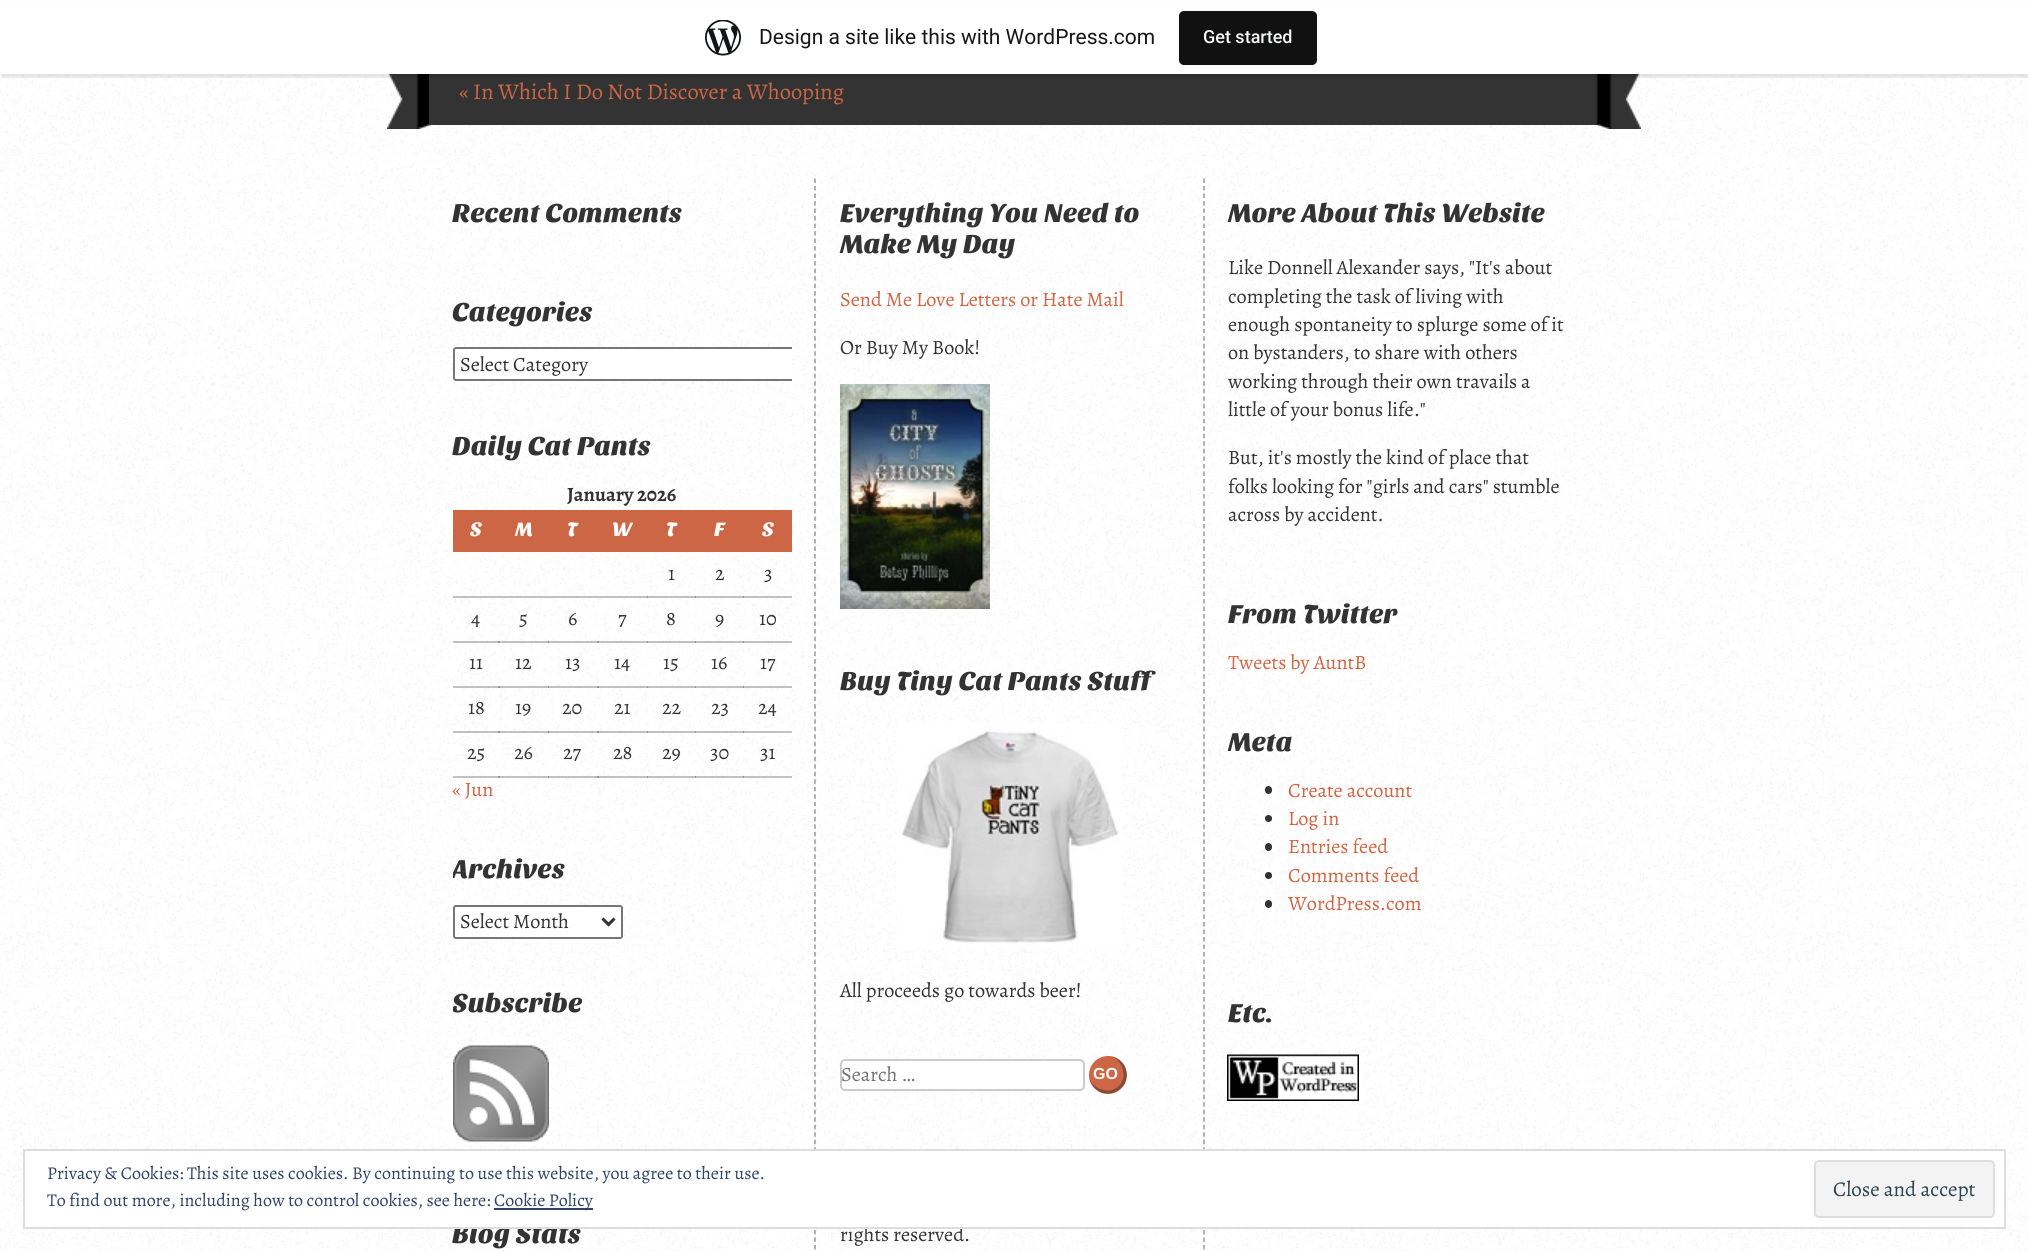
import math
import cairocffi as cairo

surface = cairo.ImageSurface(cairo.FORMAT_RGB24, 2028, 1251)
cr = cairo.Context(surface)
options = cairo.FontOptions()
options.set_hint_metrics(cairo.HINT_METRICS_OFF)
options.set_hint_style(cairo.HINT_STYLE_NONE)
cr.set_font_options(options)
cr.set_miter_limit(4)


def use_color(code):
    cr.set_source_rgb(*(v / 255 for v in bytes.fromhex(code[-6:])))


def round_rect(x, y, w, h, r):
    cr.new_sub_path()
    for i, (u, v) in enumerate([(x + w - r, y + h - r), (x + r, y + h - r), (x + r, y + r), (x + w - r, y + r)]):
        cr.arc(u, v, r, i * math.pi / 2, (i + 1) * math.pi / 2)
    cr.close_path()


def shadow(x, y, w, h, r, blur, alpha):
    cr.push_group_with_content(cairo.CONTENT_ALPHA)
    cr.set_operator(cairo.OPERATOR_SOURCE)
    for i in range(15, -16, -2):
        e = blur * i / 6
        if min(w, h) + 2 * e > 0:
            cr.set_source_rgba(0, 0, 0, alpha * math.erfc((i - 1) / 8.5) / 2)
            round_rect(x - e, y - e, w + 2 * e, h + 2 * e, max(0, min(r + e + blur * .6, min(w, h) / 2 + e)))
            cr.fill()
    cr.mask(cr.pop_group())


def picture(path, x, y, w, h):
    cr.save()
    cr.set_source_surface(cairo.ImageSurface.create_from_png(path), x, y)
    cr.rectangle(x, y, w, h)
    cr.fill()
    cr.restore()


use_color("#ffffff")
cr.paint()
picture("img1.png", 0, 74, 2028, 1177)
picture("img3.png", 387, 74, 44, 55)
use_color("#333333")
cr.rectangle(429, 74, 1170, 51)
cr.fill()
picture("img4.png", 1591, 74, 50, 55)
use_color("#000000")
shadow(0, 2, 2028, 73, 0, 1.5, 0.05)
cr.set_source_rgba(0, 0, 0, 0.08)
cr.new_path()
cr.move_to(2, 74)
cr.line_to(2, 78)
cr.line_to(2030, 78)
cr.line_to(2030, 5)
cr.line_to(2028, 5)
cr.line_to(2028, 74)
cr.close_path()
cr.fill()
use_color("#ffffff")
cr.rectangle(0, 1, 2028, 73)
cr.fill()
picture("img2.png", 705, 20, 36, 36)
cr.select_font_face("Roboto")
cr.set_font_size(21)
use_color("#171717")
cr.move_to(759, 44)
cr.show_text("Design a site like this with WordPress.com")
use_color("#111111")
round_rect(1179, 11, 138, 54, 5)
cr.fill()
cr.select_font_face("Roboto Medium")
cr.set_font_size(18)
use_color("#f6f7f7")
cr.move_to(1203, 43)
cr.show_text("Get started")
cr.select_font_face("Alegreya")
cr.set_font_size(22.5)
use_color("#cc6644")
cr.move_to(459, 99)
cr.show_text("« In Which I Do Not Discover a Whooping")
cr.new_path()
cr.move_to(815, 178.5)
cr.line_to(815, 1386)
use_color("#999999")
cr.set_line_width(1.5)
cr.set_dash([4.5, 3.01])
cr.stroke()
cr.select_font_face("Sansita One")
cr.set_font_size(27)
use_color("#333333")
cr.move_to(452, 222)
cr.show_text("Recent Comments")
cr.move_to(452, 321)
cr.show_text("Categories")
use_color("#ffffff")
cr.new_path()
cr.move_to(456, 347)
cr.line_to(792, 347)
cr.line_to(792, 381)
cr.line_to(456, 381)
cr.curve_to(454.5, 381, 453, 379.5, 453, 378)
cr.line_to(453, 350)
cr.curve_to(453, 348.5, 454.5, 347, 456, 347)
cr.close_path()
cr.fill()
cr.save()
cr.rectangle(453, 278, 339, 103)
cr.clip()
round_rect(454, 348, 525, 32, 2)
use_color("#767676")
cr.set_line_width(2)
cr.set_dash([])
cr.stroke()
cr.restore()
cr.select_font_face("Alegreya")
cr.set_font_size(20.25)
use_color("#333333")
cr.move_to(460, 371)
cr.show_text("Select Category")
cr.select_font_face("Sansita One")
cr.set_font_size(27)
cr.move_to(452, 455)
cr.show_text("Daily Cat Pants")
cr.select_font_face("Alegreya", cairo.FONT_SLANT_NORMAL, cairo.FONT_WEIGHT_BOLD)
cr.set_font_size(20.25)
cr.move_to(567, 501)
cr.show_text("January 2026")
use_color("#cc6644")
cr.rectangle(453, 510, 339, 42)
cr.fill()
cr.select_font_face("Sansita One")
use_color("#ffffff")
cr.move_to(470, 536)
cr.show_text("S")
cr.move_to(515, 536)
cr.show_text("M")
cr.move_to(567, 536)
cr.show_text("T")
cr.move_to(612, 536)
cr.show_text("W")
cr.move_to(666, 536)
cr.show_text("T")
cr.move_to(714, 536)
cr.show_text("F")
cr.move_to(762, 536)
cr.show_text("S")
cr.set_source_rgba(0.98, 0.98, 0.98, 0.5)
cr.rectangle(470, 576, 1, 1)
cr.fill()
cr.set_source_rgba(0.2, 0.2, 0.2, 0.3)
cr.rectangle(743, 596, 49, 2)
cr.fill()
cr.rectangle(695, 596, 49, 2)
cr.fill()
cr.rectangle(647, 596, 49, 2)
cr.fill()
cr.rectangle(453, 596, 195, 2)
cr.fill()
cr.select_font_face("Alegreya")
use_color("#333333")
cr.move_to(668, 580)
cr.show_text("1")
cr.move_to(715, 580)
cr.show_text("2")
cr.set_source_rgba(0.98, 0.98, 0.98, 0.5)
cr.rectangle(776, 563, 1, 1)
cr.fill()
use_color("#333333")
cr.move_to(764, 580)
cr.show_text("3")
cr.set_source_rgba(0.2, 0.2, 0.2, 0.3)
cr.rectangle(743, 641, 49, 2)
cr.fill()
cr.rectangle(695, 641, 49, 2)
cr.fill()
cr.rectangle(647, 641, 49, 2)
cr.fill()
cr.rectangle(597, 641, 51, 2)
cr.fill()
cr.rectangle(548, 641, 51, 2)
cr.fill()
cr.rectangle(498, 641, 51, 2)
cr.fill()
cr.rectangle(453, 641, 47, 2)
cr.fill()
use_color("#333333")
cr.move_to(471, 625)
cr.show_text("4")
cr.move_to(519, 625)
cr.show_text("5")
cr.move_to(568, 625)
cr.show_text("6")
cr.move_to(618, 625)
cr.show_text("7")
cr.set_source_rgba(0.98, 0.98, 0.98, 0.5)
cr.rectangle(659, 635, 1, 1)
cr.fill()
use_color("#333333")
cr.move_to(666, 625)
cr.show_text("8")
cr.move_to(715, 625)
cr.show_text("9")
cr.move_to(759, 625)
cr.show_text("10")
cr.set_source_rgba(0.98, 0.98, 0.98, 0.5)
cr.rectangle(470, 683, 2, 2)
cr.fill()
cr.set_source_rgba(0.2, 0.2, 0.2, 0.3)
cr.rectangle(743, 686, 49, 2)
cr.fill()
cr.rectangle(695, 686, 49, 2)
cr.fill()
cr.rectangle(647, 686, 49, 2)
cr.fill()
cr.rectangle(597, 686, 51, 2)
cr.fill()
cr.rectangle(548, 686, 51, 2)
cr.fill()
cr.rectangle(498, 686, 51, 2)
cr.fill()
cr.rectangle(453, 686, 47, 2)
cr.fill()
use_color("#333333")
cr.move_to(469, 669)
cr.show_text("11")
cr.move_to(515, 669)
cr.show_text("12")
cr.move_to(565, 669)
cr.show_text("13")
cr.move_to(614, 669)
cr.show_text("14")
cr.move_to(663, 669)
cr.show_text("15")
cr.set_source_rgba(0.98, 0.98, 0.98, 0.5)
cr.rectangle(731, 677, 1, 1)
cr.fill()
use_color("#333333")
cr.move_to(711, 669)
cr.show_text("16")
cr.move_to(760, 669)
cr.show_text("17")
cr.set_source_rgba(0.2, 0.2, 0.2, 0.3)
cr.rectangle(743, 731, 49, 2)
cr.fill()
cr.rectangle(695, 731, 49, 2)
cr.fill()
cr.rectangle(647, 731, 49, 2)
cr.fill()
cr.rectangle(597, 731, 51, 2)
cr.fill()
cr.rectangle(548, 731, 51, 2)
cr.fill()
cr.rectangle(498, 731, 51, 2)
cr.fill()
cr.rectangle(453, 731, 47, 2)
cr.fill()
use_color("#333333")
cr.move_to(468, 714)
cr.show_text("18")
cr.set_source_rgba(0.98, 0.98, 0.98, 0.5)
cr.rectangle(500, 695, 2, 25)
cr.fill()
use_color("#333333")
cr.move_to(515, 714)
cr.show_text("19")
cr.move_to(562, 714)
cr.show_text("20")
cr.move_to(614, 714)
cr.show_text("21")
cr.set_source_rgba(0.98, 0.98, 0.98, 0.5)
cr.rectangle(672, 698, 1, 1)
cr.fill()
use_color("#333333")
cr.move_to(662, 714)
cr.show_text("22")
cr.move_to(711, 714)
cr.show_text("23")
cr.set_source_rgba(0.98, 0.98, 0.98, 0.5)
cr.rectangle(764, 701, 1, 1)
cr.fill()
use_color("#333333")
cr.move_to(758, 714)
cr.show_text("24")
cr.set_source_rgba(0.2, 0.2, 0.2, 0.3)
cr.rectangle(743, 776, 49, 2)
cr.fill()
cr.rectangle(695, 776, 49, 2)
cr.fill()
cr.rectangle(647, 776, 49, 2)
cr.fill()
cr.rectangle(597, 776, 51, 2)
cr.fill()
cr.rectangle(548, 776, 51, 2)
cr.fill()
cr.rectangle(498, 776, 51, 2)
cr.fill()
cr.rectangle(453, 776, 47, 2)
cr.fill()
use_color("#333333")
cr.move_to(467, 759)
cr.show_text("25")
cr.move_to(514, 759)
cr.show_text("26")
cr.move_to(563, 759)
cr.show_text("27")
cr.move_to(613, 759)
cr.show_text("28")
cr.move_to(662, 759)
cr.show_text("29")
cr.move_to(710, 759)
cr.show_text("30")
cr.move_to(760, 759)
cr.show_text("31")
use_color("#cc6644")
cr.move_to(452, 796)
cr.show_text("« Jun")
cr.save()
cr.rectangle(453, 836, 339, 103)
cr.clip()
cr.select_font_face("Sansita One")
cr.set_font_size(27)
use_color("#333333")
cr.move_to(452, 878)
cr.show_text("Archives")
cr.restore()
use_color("#ffffff")
round_rect(454, 906, 168, 32, 2)
cr.fill_preserve()
use_color("#767676")
cr.set_line_width(2)
cr.set_dash([])
cr.stroke()
cr.new_path()
cr.move_to(602.5, 918.5)
cr.line_to(608.5, 924.5)
cr.line_to(614.5, 918.5)
use_color("#333333")
cr.set_line_width(3)
cr.stroke()
cr.move_to(460, 928)
cr.show_text("Select Month")
cr.save()
cr.rectangle(453, 969, 339, 201)
cr.clip()
cr.select_font_face("Sansita One")
cr.set_font_size(27)
cr.move_to(452, 1012)
cr.show_text("Subscribe")
cr.restore()
picture("img5.png", 453, 1045, 96, 97)
cr.select_font_face("Sansita One")
cr.set_font_size(27)
cr.move_to(452, 1243)
cr.show_text("Blog Stats")
cr.new_path()
cr.move_to(1204, 178.5)
cr.line_to(1204, 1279.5)
use_color("#999999")
cr.set_line_width(1.5)
cr.set_dash([4.5, 3.01])
cr.stroke()
use_color("#333333")
cr.move_to(840, 222)
cr.show_text("Everything You Need to")
cr.move_to(840, 253)
cr.show_text("Make My Day")
cr.select_font_face("Alegreya")
cr.set_font_size(20.25)
use_color("#cc6644")
cr.move_to(840, 306)
cr.show_text("Send Me Love Letters or Hate Mail")
use_color("#333333")
cr.move_to(840, 354)
cr.show_text("Or Buy My Book!")
picture("img6.png", 840, 384, 150, 225)
cr.select_font_face("Sansita One")
cr.set_font_size(27)
cr.move_to(840, 690)
cr.show_text("Buy Tiny Cat Pants Stuff")
picture("img7.png", 897, 723, 225, 225)
cr.select_font_face("Alegreya")
cr.set_font_size(20.25)
cr.move_to(840, 997)
cr.show_text("All proceeds go towards beer!")
use_color("#ffffff")
round_rect(841, 1060, 243, 30, 4)
cr.fill_preserve()
use_color("#cccccc")
cr.set_line_width(2)
cr.set_dash([])
cr.stroke()
use_color("#757575")
cr.move_to(841, 1081)
cr.show_text("Search …")
use_color("#cc6644")
cr.new_path()
cr.arc(1108, 1075, 19, 0, 2 * math.pi)
cr.fill()
cr.set_source_rgba(0.2, 0.2, 0.2, 0.5)
cr.set_fill_rule(cairo.FILL_RULE_EVEN_ODD)
cr.new_path()
cr.move_to(1108, 1056)
cr.curve_to(1118, 1056, 1126.5, 1064.5, 1126.5, 1075)
cr.curve_to(1126.5, 1085, 1118, 1093.5, 1108, 1093.5)
cr.curve_to(1097.5, 1093.5, 1089, 1085, 1089, 1075)
cr.curve_to(1089, 1064.5, 1097.5, 1056, 1108, 1056)
cr.close_path()
cr.move_to(1108, 1056)
cr.curve_to(1116.5, 1056, 1123.5, 1064.5, 1123.5, 1075)
cr.curve_to(1123.5, 1083.5, 1116.5, 1090.5, 1108, 1090.5)
cr.curve_to(1097.5, 1090.5, 1089, 1083.5, 1089, 1075)
cr.curve_to(1089, 1064.5, 1097.5, 1056, 1108, 1056)
cr.close_path()
cr.fill()
cr.select_font_face("Liberation Sans", cairo.FONT_SLANT_NORMAL, cairo.FONT_WEIGHT_BOLD)
cr.set_font_size(16)
use_color("#ffffff")
cr.move_to(1093, 1079)
cr.show_text("GO")
cr.select_font_face("Alegreya")
cr.set_font_size(20.25)
use_color("#333333")
cr.move_to(840, 1241)
cr.show_text("rights reserved.")
cr.select_font_face("Sansita One")
cr.set_font_size(27)
cr.move_to(1228, 222)
cr.show_text("More About This Website")
cr.select_font_face("Alegreya")
cr.set_font_size(20.25)
cr.move_to(1228, 274)
cr.show_text("Like Donnell Alexander says, \"It's about")
cr.move_to(1228, 303)
cr.show_text("completing the task of living with")
cr.move_to(1228, 331)
cr.show_text("enough spontaneity to splurge some of it")
cr.move_to(1228, 359)
cr.show_text("on bystanders, to share with others")
cr.move_to(1228, 388)
cr.show_text("working through their own travails a")
cr.move_to(1228, 416)
cr.show_text("little of your bonus life.\"")
cr.move_to(1228, 464)
cr.show_text("But, it's mostly the kind of place that")
cr.move_to(1228, 493)
cr.show_text("folks looking for \"girls and cars\" stumble")
cr.move_to(1228, 521)
cr.show_text("across by accident.")
cr.select_font_face("Sansita One")
cr.set_font_size(27)
cr.move_to(1228, 623)
cr.show_text("From Twitter")
cr.select_font_face("Alegreya")
cr.set_font_size(20.25)
use_color("#cc6644")
cr.move_to(1228, 669)
cr.show_text("Tweets by AuntB")
cr.select_font_face("Sansita One")
cr.set_font_size(27)
use_color("#333333")
cr.move_to(1228, 751)
cr.show_text("Meta")
round_rect(1265, 786, 7, 8, 3.5)
cr.fill()
cr.select_font_face("Alegreya")
cr.set_font_size(20.25)
use_color("#cc6644")
cr.move_to(1288, 797)
cr.show_text("Create account")
use_color("#333333")
cr.new_path()
cr.arc(1268.5, 818.5, 3.5, 0, 2 * math.pi)
cr.fill()
use_color("#cc6644")
cr.move_to(1288, 825)
cr.show_text("Log in")
use_color("#333333")
round_rect(1265, 843, 7, 8, 3.5)
cr.fill()
use_color("#cc6644")
cr.move_to(1288, 853)
cr.show_text("Entries feed")
use_color("#333333")
cr.new_path()
cr.arc(1268.5, 875.5, 3.5, 0, 2 * math.pi)
cr.fill()
use_color("#cc6644")
cr.move_to(1288, 882)
cr.show_text("Comments feed")
use_color("#333333")
round_rect(1265, 900, 7, 8, 3.5)
cr.fill()
use_color("#cc6644")
cr.move_to(1288, 910)
cr.show_text("WordPress.com")
cr.select_font_face("Sansita One")
cr.set_font_size(27)
use_color("#333333")
cr.move_to(1228, 1022)
cr.show_text("Etc.")
picture("img8.png", 1227, 1054, 132, 47)
use_color("#ffffff")
cr.rectangle(24, 1150, 1981, 78)
cr.fill_preserve()
use_color("#dedede")
cr.stroke()
cr.select_font_face("Alegreya")
cr.set_font_size(18)
use_color("#2e4467")
cr.move_to(47, 1179)
cr.show_text("Privacy & Cookies: This site uses cookies. By continuing to use this website, you agree to their use.")
cr.move_to(47, 1206)
cr.show_text("To find out more, including how to control cookies, see here:")
cr.rectangle(494, 1208, 99, 2)
cr.fill()
cr.move_to(494, 1206)
cr.show_text("Cookie Policy")
use_color("#f3f3f3")
round_rect(1815, 1161, 179, 56, 4)
cr.fill_preserve()
use_color("#dedede")
cr.stroke()
cr.set_font_size(21)
use_color("#2e4453")
cr.move_to(1833, 1196)
cr.show_text("Close and accept")
surface.write_to_png("result.png")
